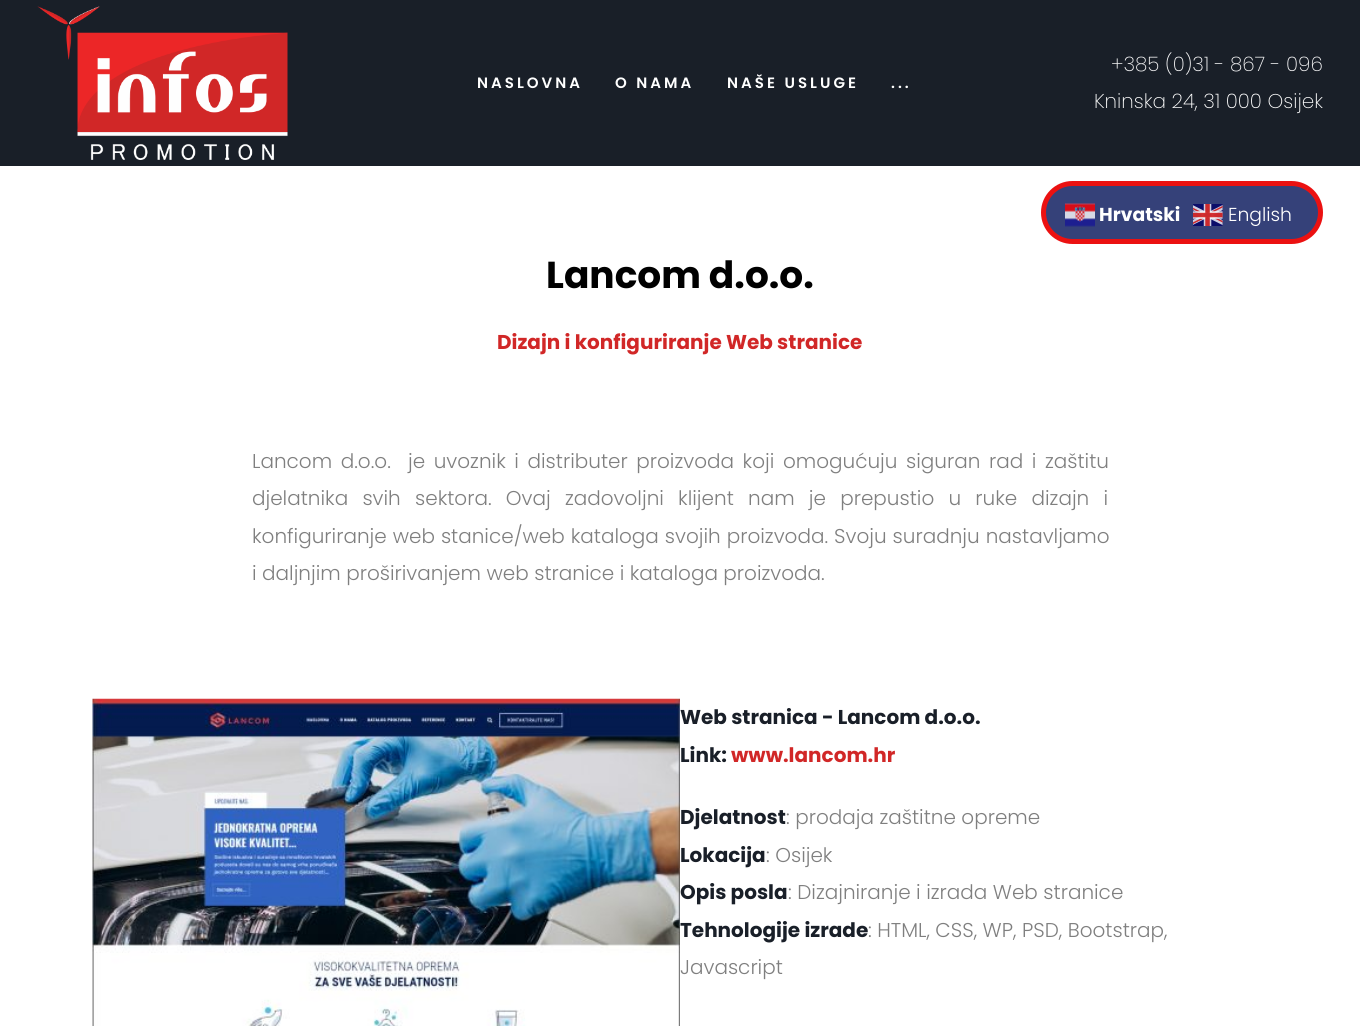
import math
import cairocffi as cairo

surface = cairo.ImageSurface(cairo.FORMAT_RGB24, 1360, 1026)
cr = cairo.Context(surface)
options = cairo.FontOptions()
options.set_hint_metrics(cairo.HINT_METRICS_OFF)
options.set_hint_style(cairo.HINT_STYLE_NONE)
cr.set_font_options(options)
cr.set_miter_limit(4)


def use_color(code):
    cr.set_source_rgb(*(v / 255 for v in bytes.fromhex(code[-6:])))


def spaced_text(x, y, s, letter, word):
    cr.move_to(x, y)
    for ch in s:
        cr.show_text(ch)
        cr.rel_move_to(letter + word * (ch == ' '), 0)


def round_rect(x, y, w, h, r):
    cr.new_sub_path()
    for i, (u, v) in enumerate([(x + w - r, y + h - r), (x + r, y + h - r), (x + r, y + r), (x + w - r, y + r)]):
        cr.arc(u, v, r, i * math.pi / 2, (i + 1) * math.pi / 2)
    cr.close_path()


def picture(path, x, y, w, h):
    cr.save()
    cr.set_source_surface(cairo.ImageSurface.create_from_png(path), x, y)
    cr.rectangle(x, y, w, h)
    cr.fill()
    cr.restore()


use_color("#ffffff")
cr.paint()
use_color("#191f28")
cr.rectangle(0, 0, 1360, 166)
cr.fill()
picture("img1.png", 37, 6, 251, 154)
cr.select_font_face("Poppins SemiBold")
cr.set_font_size(15)
use_color("#ffffff")
spaced_text(477, 88, "NASLOVNA", 3, 0)
spaced_text(615, 88, "O NAMA", 3, 0)
spaced_text(727, 88, "NAŠE USLUGE", 3, 0)
spaced_text(891, 88, "...", 3, 0)
cr.select_font_face("Poppins ExtraLight")
cr.set_font_size(20)
use_color("#f4f4f5")
cr.move_to(1111, 71)
cr.show_text("+385 (0)31 - 867 - 096")
use_color("#ffffff")
cr.move_to(1094, 108)
cr.show_text("Kninska 24, 31 000 Osijek")
cr.select_font_face("Poppins", cairo.FONT_SLANT_NORMAL, cairo.FONT_WEIGHT_BOLD)
cr.set_font_size(37.5)
use_color("#000000")
cr.move_to(546, 288)
cr.show_text("Lancom d.o.o.")
cr.set_font_size(20)
use_color("#d12727")
cr.move_to(497, 349)
cr.show_text("Dizajn i konfiguriranje Web stranice")
cr.select_font_face("Poppins Light")
use_color("#7f7f7f")
spaced_text(252, 468, "Lancom d.o.o.  je uvoznik i distributer proizvoda koji omogućuju siguran rad i zaštitu", 0, 3.1)
spaced_text(252, 505, "djelatnika svih sektora. Ovaj zadovoljni klijent nam je prepustio u ruke dizajn i", 0, 8.75)
spaced_text(252, 543, "konfiguriranje web stanice/web kataloga svojih proizvoda. Svoju suradnju nastavljamo", 0, 0.5)
cr.move_to(252, 580)
cr.show_text("i daljnjim proširivanjem web stranice i kataloga proizvoda.")
picture("img2.png", 92, 698, 588, 328)
cr.select_font_face("Poppins", cairo.FONT_SLANT_NORMAL, cairo.FONT_WEIGHT_BOLD)
use_color("#191f28")
cr.move_to(680, 724)
cr.show_text("Web stranica - Lancom d.o.o.")
cr.move_to(680, 762)
cr.show_text("Link:")
use_color("#d12727")
cr.move_to(731, 762)
cr.show_text("www.lancom.hr")
use_color("#191f28")
cr.move_to(680, 824)
cr.show_text("Djelatnost")
cr.select_font_face("Poppins Light")
use_color("#7f7f7f")
cr.move_to(786, 824)
cr.show_text(": prodaja zaštitne opreme")
cr.select_font_face("Poppins", cairo.FONT_SLANT_NORMAL, cairo.FONT_WEIGHT_BOLD)
use_color("#191f28")
cr.move_to(680, 862)
cr.show_text("Lokacija")
cr.select_font_face("Poppins Light")
use_color("#7f7f7f")
cr.move_to(766, 862)
cr.show_text(": Osijek")
cr.select_font_face("Poppins", cairo.FONT_SLANT_NORMAL, cairo.FONT_WEIGHT_BOLD)
use_color("#191f28")
cr.move_to(680, 899)
cr.show_text("Opis posla")
cr.select_font_face("Poppins Light")
use_color("#7f7f7f")
cr.move_to(788, 899)
cr.show_text(": Dizajniranje i izrada Web stranice")
cr.select_font_face("Poppins", cairo.FONT_SLANT_NORMAL, cairo.FONT_WEIGHT_BOLD)
use_color("#191f28")
cr.move_to(680, 937)
cr.show_text("Tehnologije izrade")
cr.select_font_face("Poppins Light")
use_color("#7f7f7f")
cr.move_to(868, 937)
cr.show_text(": HTML, CSS, WP, PSD, Bootstrap,")
cr.move_to(680, 974)
cr.show_text("Javascript")
use_color("#354179")
round_rect(1043.5, 183.5, 277, 58, 29)
cr.fill_preserve()
use_color("#eb1111")
cr.set_line_width(5)
cr.stroke()
picture("img3.png", 1065, 203, 30, 24)
cr.select_font_face("Poppins", cairo.FONT_SLANT_NORMAL, cairo.FONT_WEIGHT_BOLD)
cr.set_font_size(18.75)
use_color("#ffffff")
cr.move_to(1099, 221)
cr.show_text("Hrvatski")
picture("img4.png", 1193, 204, 30, 22)
cr.select_font_face("Poppins Light")
cr.move_to(1228, 221)
cr.show_text("English")
surface.write_to_png("result.png")
